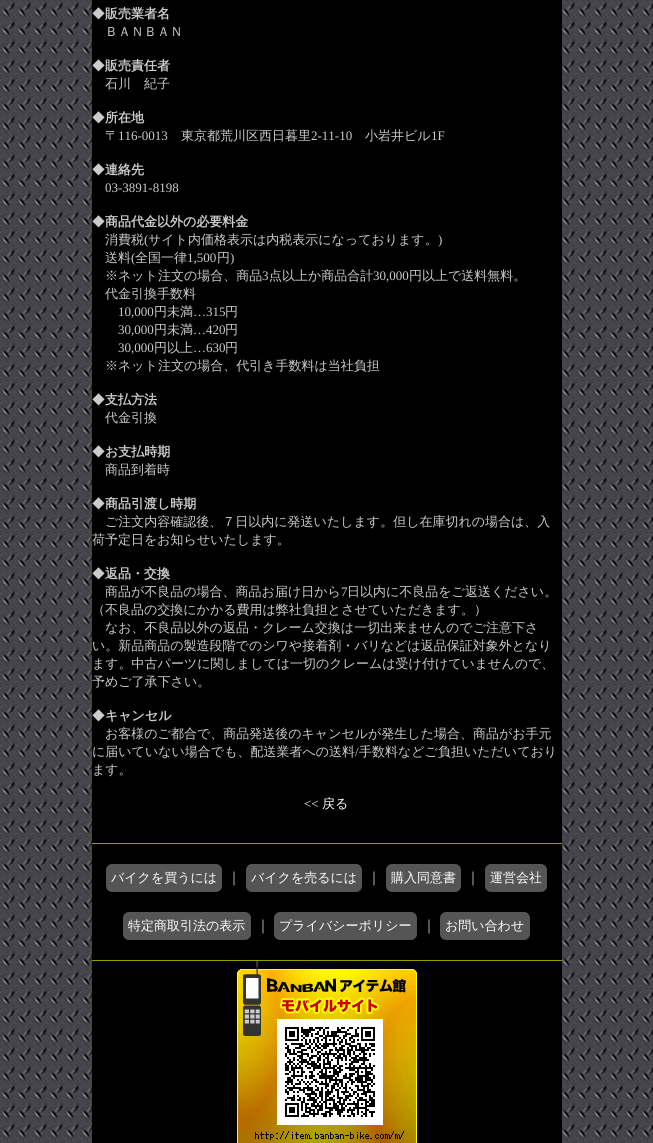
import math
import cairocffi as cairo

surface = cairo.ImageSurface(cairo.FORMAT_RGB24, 653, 1143)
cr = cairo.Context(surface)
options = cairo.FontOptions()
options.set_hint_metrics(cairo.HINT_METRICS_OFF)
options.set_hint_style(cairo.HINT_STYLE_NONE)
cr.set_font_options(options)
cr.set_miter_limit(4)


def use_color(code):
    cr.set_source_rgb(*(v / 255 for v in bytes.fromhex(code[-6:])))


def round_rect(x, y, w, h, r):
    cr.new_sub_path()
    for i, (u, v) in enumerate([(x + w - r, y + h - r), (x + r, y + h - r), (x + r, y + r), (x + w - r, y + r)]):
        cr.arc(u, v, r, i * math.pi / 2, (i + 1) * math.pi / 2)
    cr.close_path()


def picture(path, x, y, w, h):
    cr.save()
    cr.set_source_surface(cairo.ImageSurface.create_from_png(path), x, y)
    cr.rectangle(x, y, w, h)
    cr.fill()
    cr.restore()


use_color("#ffffff")
cr.paint()
picture("img1.png", 0, 0, 653, 1143)
use_color("#000000")
cr.rectangle(92, 0, 470, 1143)
cr.fill()
cr.select_font_face("WenQuanYi Zen Hei Medium")
cr.set_font_size(13)
use_color("#cccccc")
cr.move_to(92, 18)
cr.show_text("◆")
cr.select_font_face("WenQuanYi Zen Hei", cairo.FONT_SLANT_NORMAL, cairo.FONT_WEIGHT_BOLD)
cr.move_to(105, 18)
cr.show_text("販売業者名")
cr.select_font_face("WenQuanYi Zen Hei Medium")
cr.move_to(105, 36)
cr.show_text("ＢＡＮＢＡＮ")
cr.move_to(92, 70)
cr.show_text("◆")
cr.select_font_face("WenQuanYi Zen Hei", cairo.FONT_SLANT_NORMAL, cairo.FONT_WEIGHT_BOLD)
cr.move_to(105, 70)
cr.show_text("販売責任者")
cr.select_font_face("WenQuanYi Zen Hei Medium")
cr.move_to(105, 88)
cr.show_text("石川　紀子")
cr.move_to(92, 122)
cr.show_text("◆")
cr.select_font_face("WenQuanYi Zen Hei", cairo.FONT_SLANT_NORMAL, cairo.FONT_WEIGHT_BOLD)
cr.move_to(105, 122)
cr.show_text("所在地")
cr.select_font_face("WenQuanYi Zen Hei Medium")
cr.move_to(105, 140)
cr.show_text("〒")
cr.select_font_face("Liberation Serif")
cr.move_to(118, 140)
cr.show_text("116-0013")
cr.select_font_face("WenQuanYi Zen Hei Medium")
cr.move_to(181, 140)
cr.show_text("東京都荒川区西日暮里")
cr.select_font_face("Liberation Serif")
cr.move_to(311, 140)
cr.show_text("2-11-10")
cr.select_font_face("WenQuanYi Zen Hei Medium")
cr.move_to(365, 140)
cr.show_text("小岩井ビル")
cr.select_font_face("Liberation Serif")
cr.move_to(431, 140)
cr.show_text("1F")
cr.select_font_face("WenQuanYi Zen Hei Medium")
cr.move_to(92, 174)
cr.show_text("◆")
cr.select_font_face("WenQuanYi Zen Hei", cairo.FONT_SLANT_NORMAL, cairo.FONT_WEIGHT_BOLD)
cr.move_to(105, 174)
cr.show_text("連絡先")
cr.select_font_face("Liberation Serif")
cr.move_to(105, 192)
cr.show_text("03-3891-8198")
cr.select_font_face("WenQuanYi Zen Hei Medium")
cr.move_to(92, 226)
cr.show_text("◆")
cr.select_font_face("WenQuanYi Zen Hei", cairo.FONT_SLANT_NORMAL, cairo.FONT_WEIGHT_BOLD)
cr.move_to(105, 226)
cr.show_text("商品代金以外の必要料金")
cr.select_font_face("WenQuanYi Zen Hei Medium")
cr.move_to(105, 244)
cr.show_text("消費税")
cr.select_font_face("Liberation Serif")
cr.move_to(144, 244)
cr.show_text("(")
cr.select_font_face("WenQuanYi Zen Hei Medium")
cr.move_to(148, 244)
cr.show_text("サイト内価格表示は内税表示になっております。")
cr.select_font_face("Liberation Serif")
cr.move_to(438, 244)
cr.show_text(")")
cr.select_font_face("WenQuanYi Zen Hei Medium")
cr.move_to(105, 262)
cr.show_text("送料")
cr.select_font_face("Liberation Serif")
cr.move_to(131, 262)
cr.show_text("(")
cr.select_font_face("WenQuanYi Zen Hei Medium")
cr.move_to(135, 262)
cr.show_text("全国一律")
cr.select_font_face("Liberation Serif")
cr.move_to(187, 262)
cr.show_text("1,500")
cr.select_font_face("WenQuanYi Zen Hei Medium")
cr.move_to(217, 262)
cr.show_text("円")
cr.select_font_face("Liberation Serif")
cr.move_to(230, 262)
cr.show_text(")")
cr.select_font_face("WenQuanYi Zen Hei Medium")
cr.move_to(105, 280)
cr.show_text("※ネット注文の場合、商品")
cr.select_font_face("Liberation Serif")
cr.move_to(262, 280)
cr.show_text("3")
cr.select_font_face("WenQuanYi Zen Hei Medium")
cr.move_to(269, 280)
cr.show_text("点以上か商品合計")
cr.select_font_face("Liberation Serif")
cr.move_to(373, 280)
cr.show_text("30,000")
cr.select_font_face("WenQuanYi Zen Hei Medium")
cr.move_to(409, 280)
cr.show_text("円以上で送料無料。")
cr.move_to(105, 298)
cr.show_text("代金引換手数料")
cr.select_font_face("Liberation Serif")
cr.move_to(118, 316)
cr.show_text("10,000")
cr.select_font_face("WenQuanYi Zen Hei Medium")
cr.move_to(154, 316)
cr.show_text("円未満")
cr.select_font_face("Liberation Serif")
cr.move_to(193, 316)
cr.show_text("…315")
cr.select_font_face("WenQuanYi Zen Hei Medium")
cr.move_to(225, 316)
cr.show_text("円")
cr.select_font_face("Liberation Serif")
cr.move_to(118, 334)
cr.show_text("30,000")
cr.select_font_face("WenQuanYi Zen Hei Medium")
cr.move_to(154, 334)
cr.show_text("円未満")
cr.select_font_face("Liberation Serif")
cr.move_to(193, 334)
cr.show_text("…420")
cr.select_font_face("WenQuanYi Zen Hei Medium")
cr.move_to(225, 334)
cr.show_text("円")
cr.select_font_face("Liberation Serif")
cr.move_to(118, 352)
cr.show_text("30,000")
cr.select_font_face("WenQuanYi Zen Hei Medium")
cr.move_to(154, 352)
cr.show_text("円以上")
cr.select_font_face("Liberation Serif")
cr.move_to(193, 352)
cr.show_text("…630")
cr.select_font_face("WenQuanYi Zen Hei Medium")
cr.move_to(225, 352)
cr.show_text("円")
cr.move_to(105, 370)
cr.show_text("※ネット注文の場合、代引き手数料は当社負担")
cr.move_to(92, 404)
cr.show_text("◆")
cr.select_font_face("WenQuanYi Zen Hei", cairo.FONT_SLANT_NORMAL, cairo.FONT_WEIGHT_BOLD)
cr.move_to(105, 404)
cr.show_text("支払方法")
cr.select_font_face("WenQuanYi Zen Hei Medium")
cr.move_to(105, 422)
cr.show_text("代金引換")
cr.move_to(92, 456)
cr.show_text("◆")
cr.select_font_face("WenQuanYi Zen Hei", cairo.FONT_SLANT_NORMAL, cairo.FONT_WEIGHT_BOLD)
cr.move_to(105, 456)
cr.show_text("お支払時期")
cr.select_font_face("WenQuanYi Zen Hei Medium")
cr.move_to(105, 474)
cr.show_text("商品到着時")
cr.move_to(92, 508)
cr.show_text("◆")
cr.select_font_face("WenQuanYi Zen Hei", cairo.FONT_SLANT_NORMAL, cairo.FONT_WEIGHT_BOLD)
cr.move_to(105, 508)
cr.show_text("商品引渡し時期")
cr.select_font_face("WenQuanYi Zen Hei Medium")
cr.move_to(105, 526)
cr.show_text("ご注文内容確認後、７日以内に発送いたします。但し在庫切れの場合は、入")
cr.move_to(92, 544)
cr.show_text("荷予定日をお知らせいたします。")
cr.move_to(92, 578)
cr.show_text("◆")
cr.select_font_face("WenQuanYi Zen Hei", cairo.FONT_SLANT_NORMAL, cairo.FONT_WEIGHT_BOLD)
cr.move_to(105, 578)
cr.show_text("返品・交換")
cr.select_font_face("WenQuanYi Zen Hei Medium")
cr.move_to(105, 596)
cr.show_text("商品が不良品の場合、商品お届け日から")
cr.select_font_face("Liberation Serif")
cr.move_to(341, 596)
cr.show_text("7")
cr.select_font_face("WenQuanYi Zen Hei Medium")
cr.move_to(347, 596)
cr.show_text("日以内に不良品をご返送ください。")
cr.move_to(92, 614)
cr.show_text("（不良品の交換にかかる費用は弊社負担とさせていただきます。）")
cr.move_to(105, 632)
cr.show_text("なお、不良品以外の返品・クレーム交換は一切出来ませんのでご注意下さ")
cr.move_to(92, 650)
cr.show_text("い。新品商品の製造段階でのシワや接着剤・バリなどは返品保証対象外となり")
cr.move_to(92, 668)
cr.show_text("ます。中古パーツに関しましては一切のクレームは受け付けていませんので、")
cr.move_to(92, 686)
cr.show_text("予めご了承下さい。")
cr.move_to(92, 720)
cr.show_text("◆")
cr.select_font_face("WenQuanYi Zen Hei", cairo.FONT_SLANT_NORMAL, cairo.FONT_WEIGHT_BOLD)
cr.move_to(105, 720)
cr.show_text("キャンセル")
cr.select_font_face("WenQuanYi Zen Hei Medium")
cr.move_to(105, 738)
cr.show_text("お客様のご都合で、商品発送後のキャンセルが発生した場合、商品がお手元")
cr.move_to(92, 756)
cr.show_text("に届いていない場合でも、配送業者への送料")
cr.select_font_face("Liberation Serif")
cr.move_to(355, 756)
cr.show_text("/")
cr.select_font_face("WenQuanYi Zen Hei Medium")
cr.move_to(359, 756)
cr.show_text("手数料などご負担いただいており")
cr.move_to(92, 774)
cr.show_text("ます。")
cr.select_font_face("Liberation Serif")
use_color("#ffffff")
cr.move_to(304, 808)
cr.show_text("<<")
cr.select_font_face("WenQuanYi Zen Hei Medium")
cr.move_to(322, 808)
cr.show_text("戻る")
use_color("#989800")
cr.rectangle(92, 843, 470, 1)
cr.fill()
cr.rectangle(92, 960, 470, 1)
cr.fill()
use_color("#555555")
round_rect(106, 864, 116, 28, 6)
cr.fill()
use_color("#ffffff")
cr.move_to(111, 882)
cr.show_text("バイクを買うには")
cr.set_font_size(14)
use_color("#cccccc")
cr.move_to(227, 882)
cr.show_text("｜")
use_color("#555555")
round_rect(246, 864, 116, 28, 6)
cr.fill()
cr.set_font_size(13)
use_color("#ffffff")
cr.move_to(251, 882)
cr.show_text("バイクを売るには")
cr.set_font_size(14)
use_color("#cccccc")
cr.move_to(367, 882)
cr.show_text("｜")
use_color("#555555")
round_rect(386, 864, 75, 28, 6)
cr.fill()
cr.set_font_size(13)
use_color("#ffffff")
cr.move_to(391, 882)
cr.show_text("購入同意書")
cr.set_font_size(14)
use_color("#cccccc")
cr.move_to(466, 882)
cr.show_text("｜")
use_color("#555555")
round_rect(485, 864, 62, 28, 6)
cr.fill()
cr.set_font_size(13)
use_color("#ffffff")
cr.move_to(490, 882)
cr.show_text("運営会社")
use_color("#555555")
round_rect(123, 912, 128, 28, 6)
cr.fill()
use_color("#ffffff")
cr.move_to(128, 930)
cr.show_text("特定商取引法の表示")
cr.set_font_size(14)
use_color("#cccccc")
cr.move_to(256, 930)
cr.show_text("｜")
use_color("#555555")
round_rect(274, 912, 143, 28, 6)
cr.fill()
cr.set_font_size(13)
use_color("#ffffff")
cr.move_to(279, 930)
cr.show_text("プライバシーポリシー")
cr.set_font_size(14)
use_color("#cccccc")
cr.move_to(422, 930)
cr.show_text("｜")
use_color("#555555")
round_rect(440, 912, 90, 28, 6)
cr.fill()
cr.set_font_size(13)
use_color("#ffffff")
cr.move_to(445, 930)
cr.show_text("お問い合わせ")
picture("img2.png", 237, 961, 180, 182)
surface.write_to_png("result.png")
